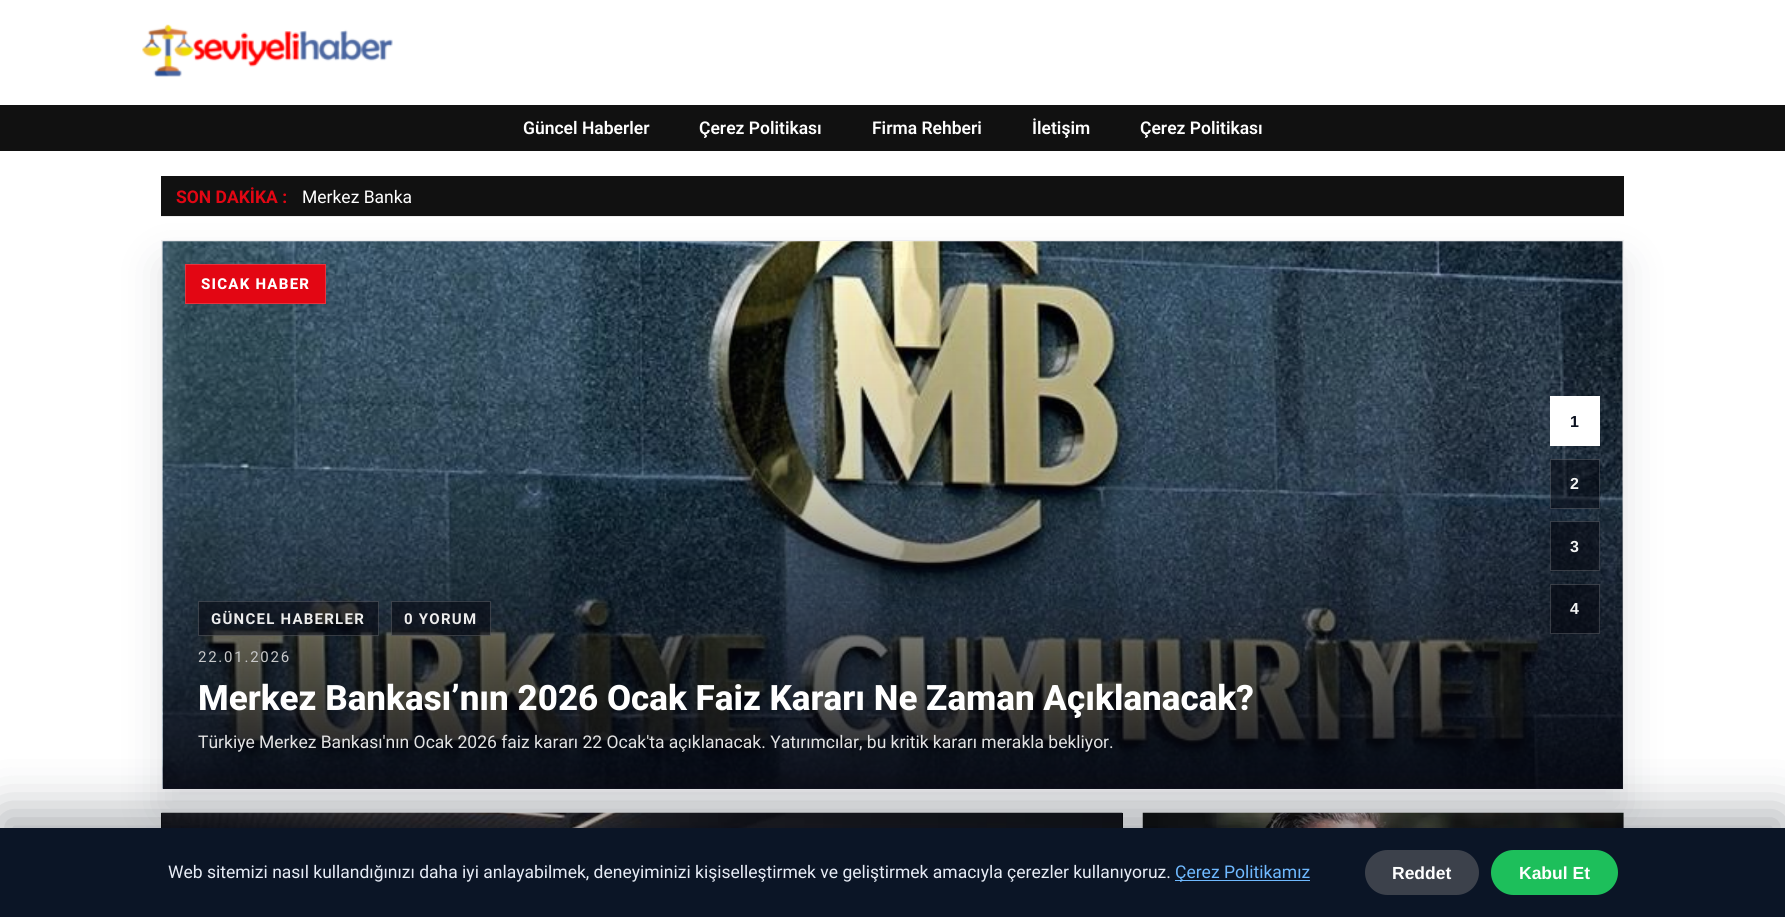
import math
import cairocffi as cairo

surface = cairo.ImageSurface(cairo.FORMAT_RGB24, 1785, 917)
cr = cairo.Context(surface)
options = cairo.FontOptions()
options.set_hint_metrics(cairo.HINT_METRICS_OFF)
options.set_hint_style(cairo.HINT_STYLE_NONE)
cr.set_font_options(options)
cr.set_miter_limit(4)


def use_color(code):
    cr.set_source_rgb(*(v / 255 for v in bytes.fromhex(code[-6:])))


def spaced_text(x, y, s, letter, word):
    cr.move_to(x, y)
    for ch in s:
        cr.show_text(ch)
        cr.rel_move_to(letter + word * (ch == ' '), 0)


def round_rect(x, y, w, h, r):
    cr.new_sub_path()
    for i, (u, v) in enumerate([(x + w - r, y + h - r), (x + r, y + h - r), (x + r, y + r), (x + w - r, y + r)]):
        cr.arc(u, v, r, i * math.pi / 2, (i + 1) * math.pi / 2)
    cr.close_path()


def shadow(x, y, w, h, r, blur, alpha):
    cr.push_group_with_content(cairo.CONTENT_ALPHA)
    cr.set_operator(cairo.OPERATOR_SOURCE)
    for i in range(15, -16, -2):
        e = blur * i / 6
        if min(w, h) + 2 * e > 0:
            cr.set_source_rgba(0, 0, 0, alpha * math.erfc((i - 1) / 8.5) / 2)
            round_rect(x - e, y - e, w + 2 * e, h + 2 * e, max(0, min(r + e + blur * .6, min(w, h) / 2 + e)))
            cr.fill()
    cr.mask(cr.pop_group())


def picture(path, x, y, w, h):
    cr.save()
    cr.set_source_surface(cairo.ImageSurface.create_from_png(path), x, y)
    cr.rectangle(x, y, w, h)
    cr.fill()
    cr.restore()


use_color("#ffffff")
cr.paint()
picture("img1.png", 142, 24, 251, 53)
use_color("#111111")
cr.rectangle(0, 105, 1785, 46)
cr.fill()
cr.select_font_face("Roboto SemiBold")
cr.set_font_size(17.5)
use_color("#ffffff")
cr.move_to(523, 134)
cr.show_text("Güncel Haberler")
cr.move_to(699, 134)
cr.show_text("Çerez Politikası")
cr.move_to(872, 134)
cr.show_text("Firma Rehberi")
cr.move_to(1032, 134)
cr.show_text("İletişim")
cr.move_to(1140, 134)
cr.show_text("Çerez Politikası")
use_color("#ededed")
cr.rectangle(161, 216, 1463, 1)
cr.fill()
use_color("#111111")
cr.rectangle(161, 176, 1463, 40)
cr.fill()
cr.select_font_face("Roboto", cairo.FONT_SLANT_NORMAL, cairo.FONT_WEIGHT_BOLD)
use_color("#e30613")
cr.move_to(176, 203)
cr.show_text("SON DAKİKA :")
cr.select_font_face("Roboto")
use_color("#ffffff")
cr.move_to(302, 203)
cr.show_text("Merkez Banka")
use_color("#101828")
shadow(161, 263, 1463, 550, 0, 22, 0.12)
use_color("#ffffff")
cr.rectangle(161.5, 240.5, 1462, 549)
cr.fill_preserve()
use_color("#ececee")
cr.set_line_width(1)
cr.stroke()
picture("img2.png", 162, 241, 1461, 548)
gradient = cairo.LinearGradient(893, 789, 893, 241)
gradient.add_color_stop_rgba(0, 0.02, 0.027, 0.063, 0.92)
gradient.add_color_stop_rgba(0.55, 0.02, 0.027, 0.063, 0.2)
gradient.add_color_stop_rgba(1, 0.02, 0.027, 0.063, 0)
cr.set_source(gradient)
cr.rectangle(163, 268, 1460, 521)
cr.fill()
use_color("#e30613")
cr.rectangle(185.5, 264.5, 140, 39)
cr.fill_preserve()
use_color("#e8333d")
cr.stroke()
cr.select_font_face("Roboto ExtraBold")
cr.set_font_size(15)
use_color("#ffffff")
spaced_text(201, 289, "SICAK HABER", 1.25, 0)
cr.set_source_rgba(0.02, 0.027, 0.063, 0.55)
cr.rectangle(198, 601, 181, 35)
cr.fill()
cr.rectangle(198.5, 601.5, 180, 34)
cr.set_source_rgba(1, 1, 1, 0.18)
cr.stroke()
cr.select_font_face("Roboto", cairo.FONT_SLANT_NORMAL, cairo.FONT_WEIGHT_BOLD)
use_color("#ededed")
spaced_text(211, 624, "GÜNCEL HABERLER", 1.25, 0)
cr.set_source_rgba(0.02, 0.027, 0.063, 0.55)
cr.rectangle(391, 601, 100, 35)
cr.fill()
cr.rectangle(391.5, 601.5, 99, 34)
cr.set_source_rgba(1, 1, 1, 0.18)
cr.stroke()
use_color("#ededed")
spaced_text(404, 624, "0 YORUM", 1.25, 0)
cr.select_font_face("Roboto")
use_color("#c8c9ca")
spaced_text(198, 662, "22.01.2026", 1.75, 0)
cr.select_font_face("Roboto ExtraBold")
cr.set_font_size(35)
use_color("#ffffff")
cr.move_to(198, 710)
cr.show_text("Merkez Bankası’nın 2026 Ocak Faiz Kararı Ne Zaman Açıklanacak?")
cr.select_font_face("Roboto")
cr.set_font_size(17.5)
use_color("#e2e2e3")
cr.move_to(198, 748)
cr.show_text("Türkiye Merkez Bankası'nın Ocak 2026 faiz kararı 22 Ocak'ta açıklanacak. Yatırımcılar, bu kritik kararı merakla bekliyor.")
use_color("#ffffff")
cr.rectangle(1550, 396, 50, 50)
cr.fill()
cr.select_font_face("Liberation Sans", cairo.FONT_SLANT_NORMAL, cairo.FONT_WEIGHT_BOLD)
cr.set_font_size(16)
use_color("#0b1120")
cr.move_to(1570, 427)
cr.show_text("1")
cr.set_source_rgba(0.02, 0.027, 0.063, 0.55)
cr.rectangle(1550, 459, 50, 50)
cr.fill()
cr.rectangle(1550.5, 459.5, 49, 49)
cr.set_source_rgba(1, 1, 1, 0.18)
cr.stroke()
use_color("#f3f4f4")
cr.move_to(1570, 489)
cr.show_text("2")
cr.set_source_rgba(0.02, 0.027, 0.063, 0.55)
cr.rectangle(1550, 521, 50, 50)
cr.fill()
cr.rectangle(1550.5, 521.5, 49, 49)
cr.set_source_rgba(1, 1, 1, 0.18)
cr.stroke()
use_color("#f3f4f4")
cr.move_to(1570, 552)
cr.show_text("3")
cr.set_source_rgba(0.02, 0.027, 0.063, 0.55)
cr.rectangle(1550, 584, 50, 50)
cr.fill()
cr.rectangle(1550.5, 584.5, 49, 49)
cr.set_source_rgba(1, 1, 1, 0.18)
cr.stroke()
use_color("#f3f4f4")
cr.move_to(1570, 614)
cr.show_text("4")
use_color("#000000")
cr.rectangle(161, 813, 962, 15)
cr.fill()
picture("img3.png", 161, 812, 962, 16)
picture("img4.png", 1142, 812, 482, 16)
gradient = cairo.LinearGradient(1383, 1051, 1383, 813)
gradient.add_color_stop_rgba(0, 0, 0, 0, 0.85)
gradient.add_color_stop_rgba(1, 0, 0, 0, 0)
cr.set_source(gradient)
cr.rectangle(1251, 819, 373, 9)
cr.fill()
use_color("#0c1522")
shadow(0, 813, 1785, 90, 0, 25, 0.35)
use_color("#0b1526")
cr.rectangle(0, 828, 1785, 89)
cr.fill()
cr.select_font_face("Roboto")
cr.set_font_size(17.5)
use_color("#e7ecf6")
cr.move_to(168, 878)
cr.show_text("Web sitemizi nasıl kullandığınızı daha iyi anlayabilmek, deneyiminizi kişiselleştirmek ve geliştirmek amacıyla çerezler kullanıyoruz.")
use_color("#6fb9ff")
cr.rectangle(1175, 880, 135, 1)
cr.fill()
cr.move_to(1175, 878)
cr.show_text("Çerez Politikamız")
use_color("#3c414b")
round_rect(1365, 850, 114, 45, 22.5)
cr.fill()
cr.select_font_face("Liberation Sans", cairo.FONT_SLANT_NORMAL, cairo.FONT_WEIGHT_BOLD)
use_color("#ffffff")
cr.move_to(1392, 879)
cr.show_text("Reddet")
use_color("#1dbf5b")
round_rect(1491, 850, 127, 45, 22.5)
cr.fill()
use_color("#ffffff")
cr.move_to(1519, 879)
cr.show_text("Kabul Et")
surface.write_to_png("result.png")
